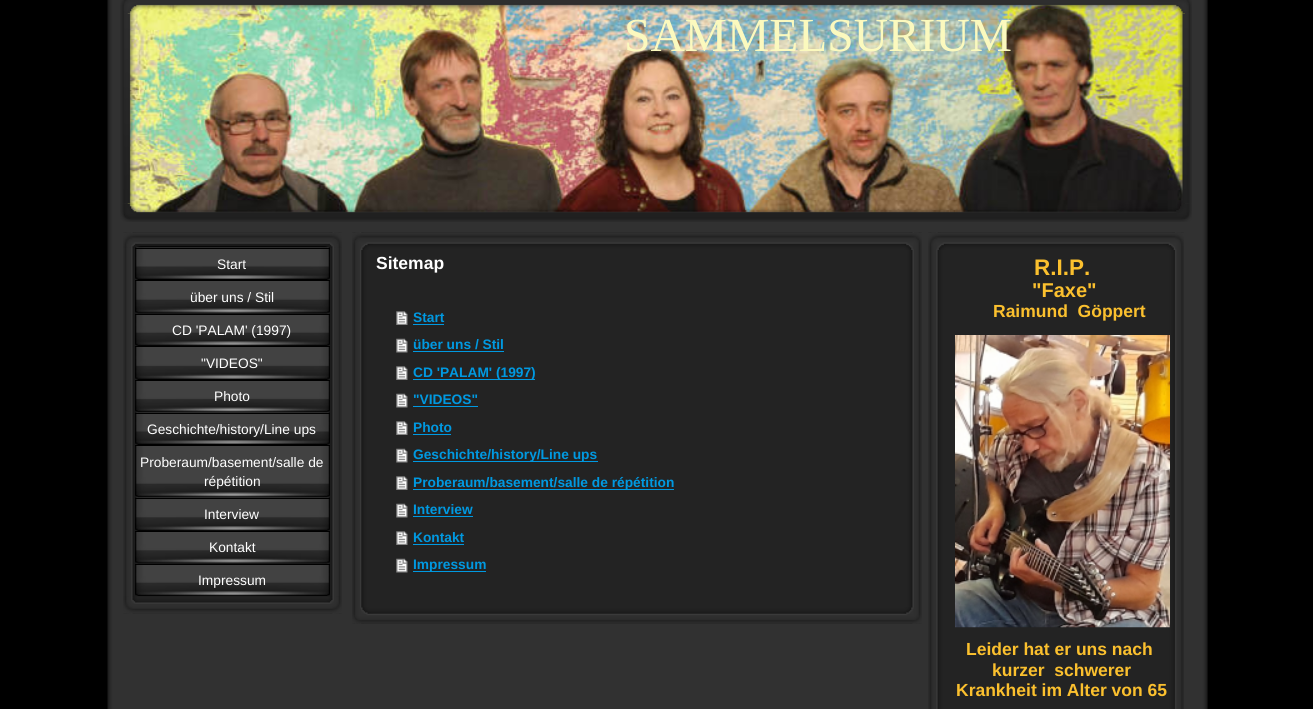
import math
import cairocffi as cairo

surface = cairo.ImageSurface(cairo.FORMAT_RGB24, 1313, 709)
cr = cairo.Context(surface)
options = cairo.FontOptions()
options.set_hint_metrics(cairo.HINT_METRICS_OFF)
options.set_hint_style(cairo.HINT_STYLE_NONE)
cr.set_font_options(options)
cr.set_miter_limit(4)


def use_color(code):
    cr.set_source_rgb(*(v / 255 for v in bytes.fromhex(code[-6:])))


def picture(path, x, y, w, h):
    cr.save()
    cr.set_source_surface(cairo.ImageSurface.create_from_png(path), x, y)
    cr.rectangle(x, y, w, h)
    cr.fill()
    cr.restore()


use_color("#000000")
cr.paint()
picture("img1.png", 107, 0, 1101, 709)
picture("img4.png", 127, 4, 1058, 209)
picture("img3.png", 120, 13, 15, 191)
picture("img6.png", 120, 203, 1072, 19)
picture("img5.png", 1178, 13, 14, 191)
picture("img2.png", 120, 0, 1072, 14)
cr.select_font_face("Liberation Serif")
cr.set_font_size(47.5)
use_color("#fbf9be")
cr.move_to(624, 51)
cr.show_text("SAMMELSURIUM")
picture("img7.png", 123, 232, 219, 382)
picture("img8.png", 123, 232, 219, 16)
picture("img9.png", 135, 247, 195, 33)
use_color("#000000")
cr.rectangle(135, 248, 195, 1)
cr.fill()
cr.select_font_face("Liberation Sans")
cr.set_font_size(13.75)
use_color("#ffffff")
cr.move_to(217, 269)
cr.show_text("Start")
picture("img10.png", 135, 281, 195, 33)
use_color("#000000")
cr.rectangle(135, 280, 195, 1)
cr.fill()
use_color("#ffffff")
cr.move_to(190, 302)
cr.show_text("über uns / Stil")
picture("img11.png", 135, 313, 195, 33)
use_color("#000000")
cr.rectangle(135, 314, 195, 1)
cr.fill()
use_color("#ffffff")
cr.move_to(172, 335)
cr.show_text("CD 'PALAM' (1997)")
picture("img12.png", 135, 347, 195, 33)
use_color("#000000")
cr.rectangle(135, 346, 195, 1)
cr.fill()
use_color("#ffffff")
cr.move_to(201, 368)
cr.show_text("\"VIDEOS\"")
picture("img13.png", 135, 381, 195, 32)
use_color("#000000")
cr.rectangle(135, 380, 195, 1)
cr.fill()
use_color("#ffffff")
cr.move_to(214, 401)
cr.show_text("Photo")
picture("img14.png", 135, 412, 195, 33)
use_color("#000000")
cr.rectangle(135, 413, 195, 1)
cr.fill()
use_color("#ffffff")
cr.move_to(147, 434)
cr.show_text("Geschichte/history/Line ups")
picture("img15.png", 135, 446, 195, 52)
use_color("#000000")
cr.rectangle(135, 445, 195, 1)
cr.fill()
use_color("#ffffff")
cr.move_to(140, 467)
cr.show_text("Proberaum/basement/salle de")
cr.move_to(204, 486)
cr.show_text("répétition")
picture("img16.png", 135, 497, 195, 34)
use_color("#000000")
cr.rectangle(135, 498, 195, 1)
cr.fill()
use_color("#ffffff")
cr.move_to(204, 519)
cr.show_text("Interview")
picture("img17.png", 135, 532, 195, 32)
use_color("#000000")
cr.rectangle(135, 531, 195, 1)
cr.fill()
use_color("#ffffff")
cr.move_to(209, 552)
cr.show_text("Kontakt")
picture("img18.png", 135, 563, 195, 34)
use_color("#000000")
cr.rectangle(135, 564, 195, 1)
cr.fill()
use_color("#ffffff")
cr.move_to(198, 585)
cr.show_text("Impressum")
picture("img19.png", 123, 596, 219, 18)
picture("img20.png", 352, 232, 570, 392)
picture("img21.png", 352, 232, 570, 18)
cr.select_font_face("Liberation Sans", cairo.FONT_SLANT_NORMAL, cairo.FONT_WEIGHT_BOLD)
cr.set_font_size(17.5)
cr.move_to(376, 269)
cr.show_text("Sitemap")
picture("img22.png", 396, 311, 12, 14)
cr.set_font_size(13.75)
use_color("#0099e1")
cr.move_to(413, 322)
cr.show_text("Start")
cr.rectangle(413, 324, 31, 1)
cr.fill()
picture("img23.png", 396, 338, 12, 15)
cr.move_to(413, 349)
cr.show_text("über uns / Stil")
cr.rectangle(413, 351, 91, 1)
cr.fill()
picture("img22.png", 396, 366, 12, 14)
cr.rectangle(413, 379, 122, 1)
cr.fill()
cr.move_to(413, 377)
cr.show_text("CD 'PALAM' (1997)")
picture("img23.png", 396, 393, 12, 15)
cr.move_to(413, 404)
cr.show_text("\"VIDEOS\"")
cr.rectangle(413, 406, 65, 1)
cr.fill()
picture("img22.png", 396, 421, 12, 14)
cr.move_to(413, 432)
cr.show_text("Photo")
cr.rectangle(413, 434, 38, 1)
cr.fill()
picture("img23.png", 396, 448, 12, 15)
cr.rectangle(413, 461, 185, 1)
cr.fill()
cr.move_to(413, 459)
cr.show_text("Geschichte/history/Line ups")
picture("img22.png", 396, 476, 12, 14)
cr.rectangle(413, 489, 261, 1)
cr.fill()
cr.move_to(413, 487)
cr.show_text("Proberaum/basement/salle de répétition")
picture("img23.png", 396, 503, 12, 15)
cr.move_to(413, 514)
cr.show_text("Interview")
cr.rectangle(413, 516, 60, 1)
cr.fill()
picture("img22.png", 396, 531, 12, 14)
cr.move_to(413, 542)
cr.show_text("Kontakt")
cr.rectangle(413, 544, 51, 1)
cr.fill()
picture("img23.png", 396, 558, 12, 15)
cr.rectangle(413, 571, 73, 1)
cr.fill()
cr.move_to(413, 569)
cr.show_text("Impressum")
picture("img24.png", 352, 607, 570, 17)
picture("img25.png", 928, 232, 256, 477)
picture("img26.png", 928, 232, 256, 18)
cr.set_font_size(22.5)
use_color("#fbc02e")
cr.move_to(1034, 275)
cr.show_text("R.I.P.")
cr.set_font_size(20)
cr.move_to(1032, 297)
cr.show_text("\"Faxe\"")
cr.set_font_size(17.5)
cr.move_to(993, 317)
cr.show_text("Raimund  Göppert")
picture("img27.png", 955, 335, 215, 293)
cr.move_to(966, 655)
cr.show_text("Leider hat er uns nach")
cr.move_to(992, 676)
cr.show_text("kurzer  schwerer")
cr.move_to(956, 696)
cr.show_text("Krankheit im Alter von 65")
surface.write_to_png("result.png")
